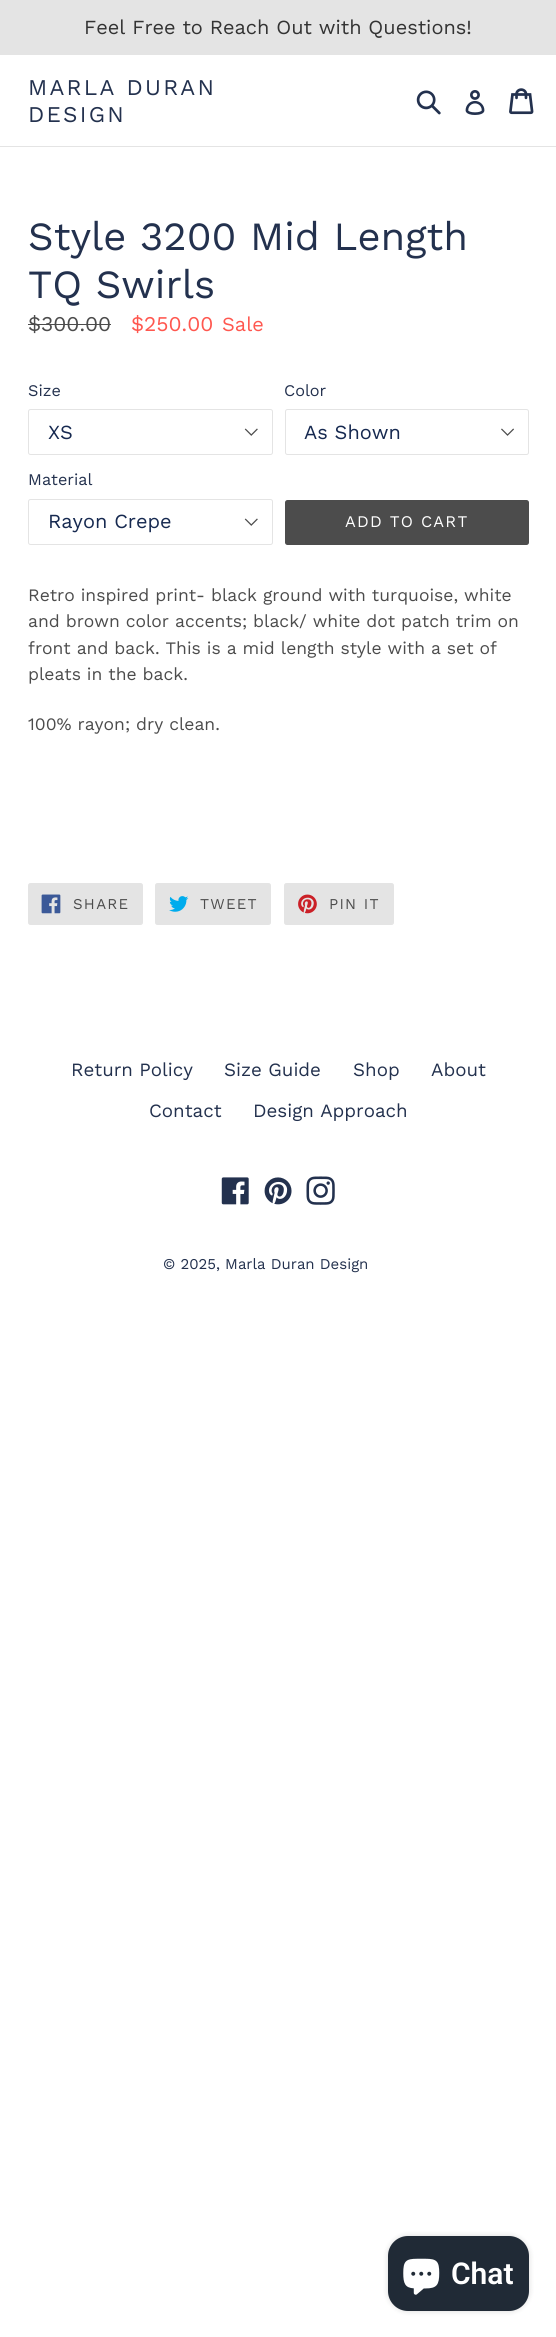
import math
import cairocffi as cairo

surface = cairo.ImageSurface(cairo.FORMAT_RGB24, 556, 2337)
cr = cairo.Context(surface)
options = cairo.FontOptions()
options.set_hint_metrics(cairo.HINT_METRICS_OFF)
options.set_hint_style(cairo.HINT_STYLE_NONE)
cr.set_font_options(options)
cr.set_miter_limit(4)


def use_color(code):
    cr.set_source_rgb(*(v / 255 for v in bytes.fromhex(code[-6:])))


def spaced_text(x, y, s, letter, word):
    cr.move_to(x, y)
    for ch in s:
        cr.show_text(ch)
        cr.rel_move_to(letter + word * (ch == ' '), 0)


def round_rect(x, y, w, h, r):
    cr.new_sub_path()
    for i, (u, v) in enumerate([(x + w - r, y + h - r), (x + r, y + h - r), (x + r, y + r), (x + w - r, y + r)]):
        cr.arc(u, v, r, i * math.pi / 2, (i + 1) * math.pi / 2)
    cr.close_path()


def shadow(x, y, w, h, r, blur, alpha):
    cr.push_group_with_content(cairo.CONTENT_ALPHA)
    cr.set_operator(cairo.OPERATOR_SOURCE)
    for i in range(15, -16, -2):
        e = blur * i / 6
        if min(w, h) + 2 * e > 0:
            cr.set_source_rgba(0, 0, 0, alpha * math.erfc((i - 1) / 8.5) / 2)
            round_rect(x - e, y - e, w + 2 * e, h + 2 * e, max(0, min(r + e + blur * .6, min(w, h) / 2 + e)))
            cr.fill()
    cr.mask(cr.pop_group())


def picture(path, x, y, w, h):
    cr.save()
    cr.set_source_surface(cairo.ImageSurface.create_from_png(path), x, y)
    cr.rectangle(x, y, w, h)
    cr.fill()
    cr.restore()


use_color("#ffffff")
cr.paint()
use_color("#e4e4e4")
cr.rectangle(0, 0, 556, 55)
cr.fill()
cr.select_font_face("Work Sans")
cr.set_font_size(20)
use_color("#333333")
cr.move_to(84, 34)
cr.show_text("Feel Free to Reach Out with Questions!")
use_color("#e4e4e4")
cr.rectangle(0, 146, 556, 1)
cr.fill()
cr.set_font_size(22.5)
use_color("#23314e")
spaced_text(28, 95, "MARLA DURAN", 2.25, 0)
spaced_text(28, 122, "DESIGN", 2.25, 0)
picture("img1.png", 416, 90, 25, 25)
picture("img2.png", 465, 90, 20, 25)
picture("img3.png", 509, 88, 25, 27)
cr.set_font_size(40)
cr.move_to(28, 250)
cr.show_text("Style 3200 Mid Length")
cr.move_to(28, 298)
cr.show_text("TQ Swirls")
cr.set_font_size(21)
use_color("#4c4c4c")
cr.move_to(28, 331)
cr.show_text("$300.00")
cr.rectangle(28, 324, 83, 1)
cr.fill()
use_color("#ff574f")
cr.move_to(131, 331)
cr.show_text("$250.00")
cr.set_font_size(20)
cr.move_to(222, 331)
cr.show_text("Sale")
cr.set_font_size(16.25)
use_color("#23314e")
cr.move_to(28, 396)
cr.show_text("Size")
picture("img4.png", 244, 428, 14, 8)
round_rect(28.5, 409.5, 244, 45, 2)
use_color("#e4e4e4")
cr.set_line_width(1)
cr.stroke()
cr.set_font_size(20)
use_color("#162950")
cr.move_to(48, 439)
cr.show_text("XS")
cr.set_font_size(16.25)
use_color("#23314e")
cr.move_to(284, 396)
cr.show_text("Color")
picture("img5.png", 501, 428, 13, 8)
round_rect(285.5, 409.5, 243, 45, 2)
use_color("#e4e4e4")
cr.stroke()
cr.set_font_size(20)
use_color("#162950")
cr.move_to(304, 439)
cr.show_text("As Shown")
cr.set_font_size(16.25)
use_color("#23314e")
cr.move_to(28, 485)
cr.show_text("Material")
picture("img4.png", 244, 518, 14, 8)
round_rect(28.5, 499.5, 244, 45, 2)
use_color("#e4e4e4")
cr.stroke()
cr.set_font_size(20)
use_color("#162950")
cr.move_to(48, 528)
cr.show_text("Rayon Crepe")
use_color("#4c4c4c")
round_rect(285, 500, 244, 45, 2.5)
cr.fill()
cr.set_font_size(16.25)
use_color("#ffffff")
spaced_text(345, 527, "ADD TO CART", 1.25, 0)
cr.set_font_size(17.5)
use_color("#4c4c4c")
cr.move_to(28, 601)
cr.show_text("Retro inspired print- black ground with turquoise, white")
cr.move_to(28, 627)
cr.show_text("and brown color accents; black/ white dot patch trim on")
cr.move_to(28, 654)
cr.show_text("front and back. This is a mid length style with a set of")
cr.move_to(28, 680)
cr.show_text("pleats in the back.")
cr.move_to(28, 730)
cr.show_text("100% rayon; dry clean.")
use_color("#e4e4e4")
round_rect(28.5, 883.5, 114, 41, 2)
cr.fill_preserve()
cr.stroke()
picture("img6.png", 41, 894, 20, 20)
cr.set_font_size(15)
use_color("#4c4c4c")
spaced_text(73, 909, "SHARE", 1.25, 0)
use_color("#e4e4e4")
round_rect(155.5, 883.5, 115, 41, 2)
cr.fill_preserve()
cr.stroke()
picture("img7.png", 169, 896, 20, 16)
use_color("#4c4c4c")
spaced_text(200, 909, "TWEET", 1.25, 0)
use_color("#e4e4e4")
round_rect(284.5, 883.5, 109, 41, 2)
cr.fill_preserve()
cr.stroke()
picture("img8.png", 298, 894, 19, 20)
use_color("#4c4c4c")
spaced_text(329, 909, "PIN IT", 1.25, 0)
cr.set_font_size(18.75)
use_color("#23314e")
cr.move_to(71, 1076)
cr.show_text("Return Policy")
cr.move_to(224, 1076)
cr.show_text("Size Guide")
cr.move_to(353, 1076)
cr.show_text("Shop")
cr.move_to(431, 1076)
cr.show_text("About")
cr.move_to(149, 1117)
cr.show_text("Contact")
cr.move_to(253, 1117)
cr.show_text("Design Approach")
picture("img9.png", 221, 1177, 28, 28)
picture("img10.png", 264, 1177, 28, 28)
picture("img11.png", 306, 1176, 29, 29)
cr.set_font_size(15)
cr.move_to(163, 1269)
cr.show_text("© 2025, Marla Duran Design")
use_color("#000000")
shadow(388, 2236, 141, 75, 20, 3, 0.15)
use_color("#202a36")
round_rect(388, 2236, 141, 75, 20)
cr.fill()
picture("img12.png", 403, 2258, 37, 37)
cr.select_font_face("Roboto SemiBold")
cr.set_font_size(30)
use_color("#ffffff")
cr.move_to(451, 2284)
cr.show_text("Chat")
surface.write_to_png("result.png")
